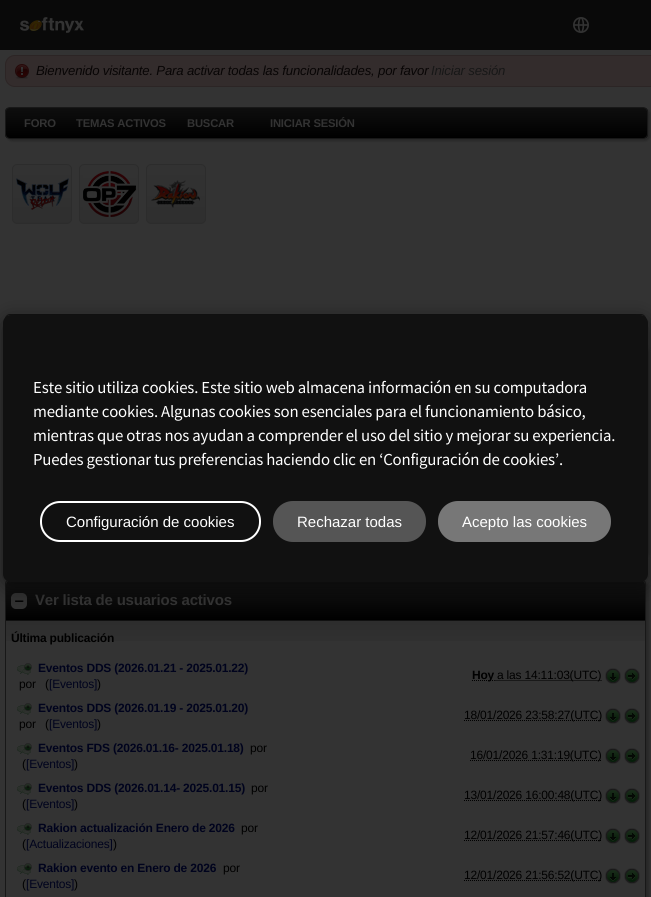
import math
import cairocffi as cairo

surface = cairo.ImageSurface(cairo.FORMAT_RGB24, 651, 897)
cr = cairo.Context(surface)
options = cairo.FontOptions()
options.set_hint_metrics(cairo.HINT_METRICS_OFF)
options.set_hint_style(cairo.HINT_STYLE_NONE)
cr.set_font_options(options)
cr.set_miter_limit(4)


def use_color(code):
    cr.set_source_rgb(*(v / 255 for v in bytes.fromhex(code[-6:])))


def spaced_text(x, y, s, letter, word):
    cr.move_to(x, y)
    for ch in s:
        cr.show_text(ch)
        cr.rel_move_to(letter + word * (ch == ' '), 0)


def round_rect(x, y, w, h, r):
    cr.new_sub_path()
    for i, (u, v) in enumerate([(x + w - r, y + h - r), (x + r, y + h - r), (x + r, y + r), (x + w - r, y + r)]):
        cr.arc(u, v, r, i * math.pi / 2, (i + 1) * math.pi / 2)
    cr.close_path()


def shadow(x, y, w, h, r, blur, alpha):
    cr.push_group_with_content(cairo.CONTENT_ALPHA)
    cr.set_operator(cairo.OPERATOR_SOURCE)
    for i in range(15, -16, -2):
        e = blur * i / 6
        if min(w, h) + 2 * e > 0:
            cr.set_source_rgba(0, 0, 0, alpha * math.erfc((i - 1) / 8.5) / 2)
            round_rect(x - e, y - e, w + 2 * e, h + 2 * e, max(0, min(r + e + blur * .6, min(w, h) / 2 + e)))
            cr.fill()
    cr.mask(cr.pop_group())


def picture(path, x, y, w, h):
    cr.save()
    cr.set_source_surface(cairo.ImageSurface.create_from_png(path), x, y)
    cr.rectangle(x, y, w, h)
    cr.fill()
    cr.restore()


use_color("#333333")
cr.paint()
use_color("#332c2c")
round_rect(5, 55, 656, 32, 10)
cr.fill()
picture("img1.png", 15, 64, 14, 15)
round_rect(5.5, 55.5, 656, 31, 9.5)
use_color("#2c2525")
cr.set_line_width(1)
cr.stroke()
cr.select_font_face("Liberation Sans", cairo.FONT_SLANT_ITALIC)
cr.set_font_size(13.2)
use_color("#080505")
spaced_text(36, 75, "Bienvenido visitante. Para activar todas las funcionalidades, por favor", -0.2, 0)
use_color("#171717")
spaced_text(431, 75, "Iniciar sesión", -0.2, 0)
use_color("#272727")
shadow(7, 109, 643, 32, 5, 1, 1)
cr.save()
round_rect(5, 107, 643, 32, 5)
cr.clip()
gradient = cairo.LinearGradient(6, 108, 6, 138)
gradient.add_color_stop_rgba(0, 0.055, 0.055, 0.055, 1)
gradient.add_color_stop_rgba(1, 0, 0, 0, 1)
cr.set_source(gradient)
cr.rectangle(5, 108, 643, 30)
cr.fill()
cr.restore()
round_rect(5.5, 107.5, 642, 31, 4.5)
use_color("#181818")
cr.stroke()
cr.select_font_face("Liberation Sans", cairo.FONT_SLANT_NORMAL, cairo.FONT_WEIGHT_BOLD)
cr.set_font_size(11.25)
use_color("#333333")
spaced_text(24, 127, "FORO", -0.2, 0)
spaced_text(76, 127, "TEMAS ACTIVOS", -0.2, 0)
spaced_text(187, 127, "BUSCAR", -0.2, 0)
spaced_text(270, 127, "INICIAR SESIÓN", -0.2, 0)
picture("img2.png", 12, 164, 60, 60)
picture("img3.png", 79, 164, 60, 60)
picture("img4.png", 146, 164, 60, 60)
round_rect(5.5, 314.5, 640, 19, 4.5)
use_color("#141414")
cr.stroke()
use_color("#272727")
shadow(8, 347, 641, 211, 5, 1.5, 1)
cr.save()
cr.set_fill_rule(cairo.FILL_RULE_EVEN_ODD)
cr.new_path()
cr.move_to(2, 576)
cr.line_to(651, 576)
cr.line_to(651, 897)
cr.line_to(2, 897)
cr.close_path()
cr.move_to(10, 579)
cr.line_to(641, 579)
cr.curve_to(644, 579, 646, 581, 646, 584)
cr.line_to(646, 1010)
cr.curve_to(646, 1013, 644, 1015, 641, 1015)
cr.line_to(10, 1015)
cr.curve_to(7, 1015, 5, 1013, 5, 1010)
cr.line_to(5, 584)
cr.curve_to(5, 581, 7, 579, 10, 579)
cr.close_path()
cr.clip()
shadow(8, 582, 641, 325, 5, 1.5, 1)
cr.restore()
round_rect(5.5, 579.5, 640, 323, 4.5)
use_color("#181818")
cr.stroke()
gradient = cairo.LinearGradient(6, 580, 6, 620)
gradient.add_color_stop_rgba(0, 0.078, 0.078, 0.078, 1)
gradient.add_color_stop_rgba(1, 0, 0, 0, 1)
cr.set_source(gradient)
cr.new_path()
cr.move_to(11, 580)
cr.line_to(640, 580)
cr.curve_to(643, 580, 645, 582, 645, 585)
cr.line_to(645, 620)
cr.line_to(6, 620)
cr.line_to(6, 585)
cr.curve_to(6, 582, 8, 580, 11, 580)
cr.close_path()
cr.fill()
use_color("#313131")
round_rect(11, 593, 16, 16, 5)
cr.fill()
picture("img5.png", 15, 600, 9, 3)
cr.set_font_size(15)
use_color("#333333")
spaced_text(35, 605, "Ver lista de usuarios activos", -0.2, 0)
gradient = cairo.LinearGradient(6, 621, 6, 656)
gradient.add_color_stop_rgba(0, 0.176, 0.176, 0.176, 1)
gradient.add_color_stop_rgba(1, 0.2, 0.2, 0.2, 1)
cr.set_source(gradient)
cr.rectangle(6, 621, 639, 20)
cr.fill()
use_color("#111111")
cr.rectangle(6, 620, 639, 1)
cr.fill()
cr.set_font_size(12)
use_color("#000000")
spaced_text(11, 642, "Última publicación", -0.2, 0)
picture("img6.png", 17, 663, 15, 12)
use_color("#00031d")
spaced_text(38, 672, "Eventos DDS (2026.01.21 - 2025.01.22)", -0.2, 0)
cr.select_font_face("Liberation Sans")
use_color("#000000")
spaced_text(19, 688, "por", -0.2, 0)
spaced_text(45, 688, "(", -0.2, 0)
use_color("#00031d")
spaced_text(49, 688, "[Eventos]", -0.2, 0)
use_color("#000000")
spaced_text(97, 688, ")", -0.2, 0)
cr.new_path()
cr.move_to(472, 680.5)
cr.line_to(494.5, 680.5)
cr.set_dash([1, 1])
cr.stroke()
cr.select_font_face("Liberation Sans", cairo.FONT_SLANT_NORMAL, cairo.FONT_WEIGHT_BOLD)
spaced_text(472, 679, "Hoy", -0.2, 0)
cr.new_path()
cr.move_to(494.5, 680.5)
cr.line_to(601.5, 680.5)
cr.stroke()
cr.select_font_face("Liberation Sans")
spaced_text(497, 679, "a las 14:11:03(UTC)", -0.2, 0)
picture("img7.png", 605, 668, 16, 16)
picture("img8.png", 624, 668, 16, 16)
picture("img6.png", 17, 703, 15, 12)
cr.select_font_face("Liberation Sans", cairo.FONT_SLANT_NORMAL, cairo.FONT_WEIGHT_BOLD)
use_color("#00031d")
spaced_text(38, 712, "Eventos DDS (2026.01.19 - 2025.01.20)", -0.2, 0)
cr.select_font_face("Liberation Sans")
use_color("#000000")
spaced_text(19, 728, "por", -0.2, 0)
spaced_text(45, 728, "(", -0.2, 0)
use_color("#00031d")
spaced_text(49, 728, "[Eventos]", -0.2, 0)
use_color("#000000")
spaced_text(97, 728, ")", -0.2, 0)
cr.new_path()
cr.move_to(464, 720.5)
cr.line_to(601.5, 720.5)
cr.stroke()
spaced_text(464, 719, "18/01/2026 23:58:27(UTC)", -0.2, 0)
picture("img7.png", 605, 708, 16, 16)
picture("img8.png", 624, 708, 16, 16)
picture("img6.png", 17, 743, 15, 12)
cr.select_font_face("Liberation Sans", cairo.FONT_SLANT_NORMAL, cairo.FONT_WEIGHT_BOLD)
use_color("#00031d")
spaced_text(38, 752, "Eventos FDS (2026.01.16- 2025.01.18)", -0.2, 0)
cr.select_font_face("Liberation Sans")
use_color("#000000")
spaced_text(250, 752, "por", -0.2, 0)
spaced_text(22, 768, "(", -0.2, 0)
use_color("#00031d")
spaced_text(26, 768, "[Eventos]", -0.2, 0)
use_color("#000000")
spaced_text(74, 768, ")", -0.2, 0)
cr.new_path()
cr.move_to(470, 760.5)
cr.line_to(601.5, 760.5)
cr.stroke()
spaced_text(470, 759, "16/01/2026 1:31:19(UTC)", -0.2, 0)
picture("img7.png", 605, 748, 16, 16)
picture("img8.png", 624, 748, 16, 16)
picture("img6.png", 17, 783, 15, 12)
cr.select_font_face("Liberation Sans", cairo.FONT_SLANT_NORMAL, cairo.FONT_WEIGHT_BOLD)
use_color("#00031d")
spaced_text(38, 792, "Eventos DDS (2026.01.14- 2025.01.15)", -0.2, 0)
cr.select_font_face("Liberation Sans")
use_color("#000000")
spaced_text(251, 792, "por", -0.2, 0)
spaced_text(22, 808, "(", -0.2, 0)
use_color("#00031d")
spaced_text(26, 808, "[Eventos]", -0.2, 0)
use_color("#000000")
spaced_text(74, 808, ")", -0.2, 0)
cr.new_path()
cr.move_to(464, 800.5)
cr.line_to(601.5, 800.5)
cr.stroke()
spaced_text(464, 799, "13/01/2026 16:00:48(UTC)", -0.2, 0)
picture("img7.png", 605, 788, 16, 16)
picture("img8.png", 624, 788, 16, 16)
picture("img6.png", 17, 823, 15, 12)
cr.select_font_face("Liberation Sans", cairo.FONT_SLANT_NORMAL, cairo.FONT_WEIGHT_BOLD)
use_color("#00031d")
spaced_text(38, 832, "Rakion actualización Enero de 2026", -0.2, 0)
cr.select_font_face("Liberation Sans")
use_color("#000000")
spaced_text(241, 832, "por", -0.2, 0)
spaced_text(22, 848, "(", -0.2, 0)
use_color("#00031d")
spaced_text(26, 848, "[Actualizaciones]", -0.2, 0)
use_color("#000000")
spaced_text(113, 848, ")", -0.2, 0)
cr.new_path()
cr.move_to(464, 840.5)
cr.line_to(601.5, 840.5)
cr.stroke()
spaced_text(464, 839, "12/01/2026 21:57:46(UTC)", -0.2, 0)
picture("img7.png", 605, 828, 16, 16)
picture("img8.png", 624, 828, 16, 16)
picture("img6.png", 17, 863, 15, 12)
cr.select_font_face("Liberation Sans", cairo.FONT_SLANT_NORMAL, cairo.FONT_WEIGHT_BOLD)
use_color("#00031d")
spaced_text(38, 872, "Rakion evento en Enero de 2026", -0.2, 0)
cr.select_font_face("Liberation Sans")
use_color("#000000")
spaced_text(223, 872, "por", -0.2, 0)
spaced_text(22, 888, "(", -0.2, 0)
use_color("#00031d")
spaced_text(26, 888, "[Eventos]", -0.2, 0)
use_color("#000000")
spaced_text(74, 888, ")", -0.2, 0)
cr.new_path()
cr.move_to(464, 880.5)
cr.line_to(601.5, 880.5)
cr.stroke()
spaced_text(464, 879, "12/01/2026 21:56:52(UTC)", -0.2, 0)
picture("img7.png", 605, 868, 16, 16)
picture("img8.png", 624, 868, 16, 16)
use_color("#090909")
cr.rectangle(0, 0, 651, 50)
cr.fill()
picture("img9.png", 20, 17, 64, 16)
picture("img10.png", 573, 17, 16, 16)
use_color("#000000")
shadow(3, 319, 645, 267, 8, 10, 0.5)
use_color("#111111")
round_rect(3, 315, 645, 267, 8)
cr.fill()
cr.select_font_face("Noto Sans KR")
cr.set_font_size(15)
use_color("#ffffff")
spaced_text(33, 393, "Este sitio utiliza cookies. Este sitio web almacena información en su computadora", -0.2, 0)
spaced_text(33, 417, "mediante cookies. Algunas cookies son esenciales para el funcionamiento básico,", -0.2, 0)
spaced_text(33, 441, "mientras que otras nos ayudan a comprender el uso del sitio y mejorar su experiencia.", -0.2, 0)
spaced_text(33, 465, "Puedes gestionar tus preferencias haciendo clic en ‘Configuración de cookies’.", -0.2, 0)
round_rect(41, 502, 219, 39, 19)
cr.set_line_width(2)
cr.set_dash([])
cr.stroke()
cr.select_font_face("Liberation Sans")
cr.move_to(66, 527)
cr.show_text("Configuración de cookies")
use_color("#555555")
round_rect(273, 501, 153, 41, 20)
cr.fill()
use_color("#ffffff")
cr.move_to(297, 527)
cr.show_text("Rechazar todas")
use_color("#777777")
round_rect(438, 501, 173, 41, 20)
cr.fill()
use_color("#ffffff")
cr.move_to(462, 527)
cr.show_text("Acepto las cookies")
surface.write_to_png("result.png")
